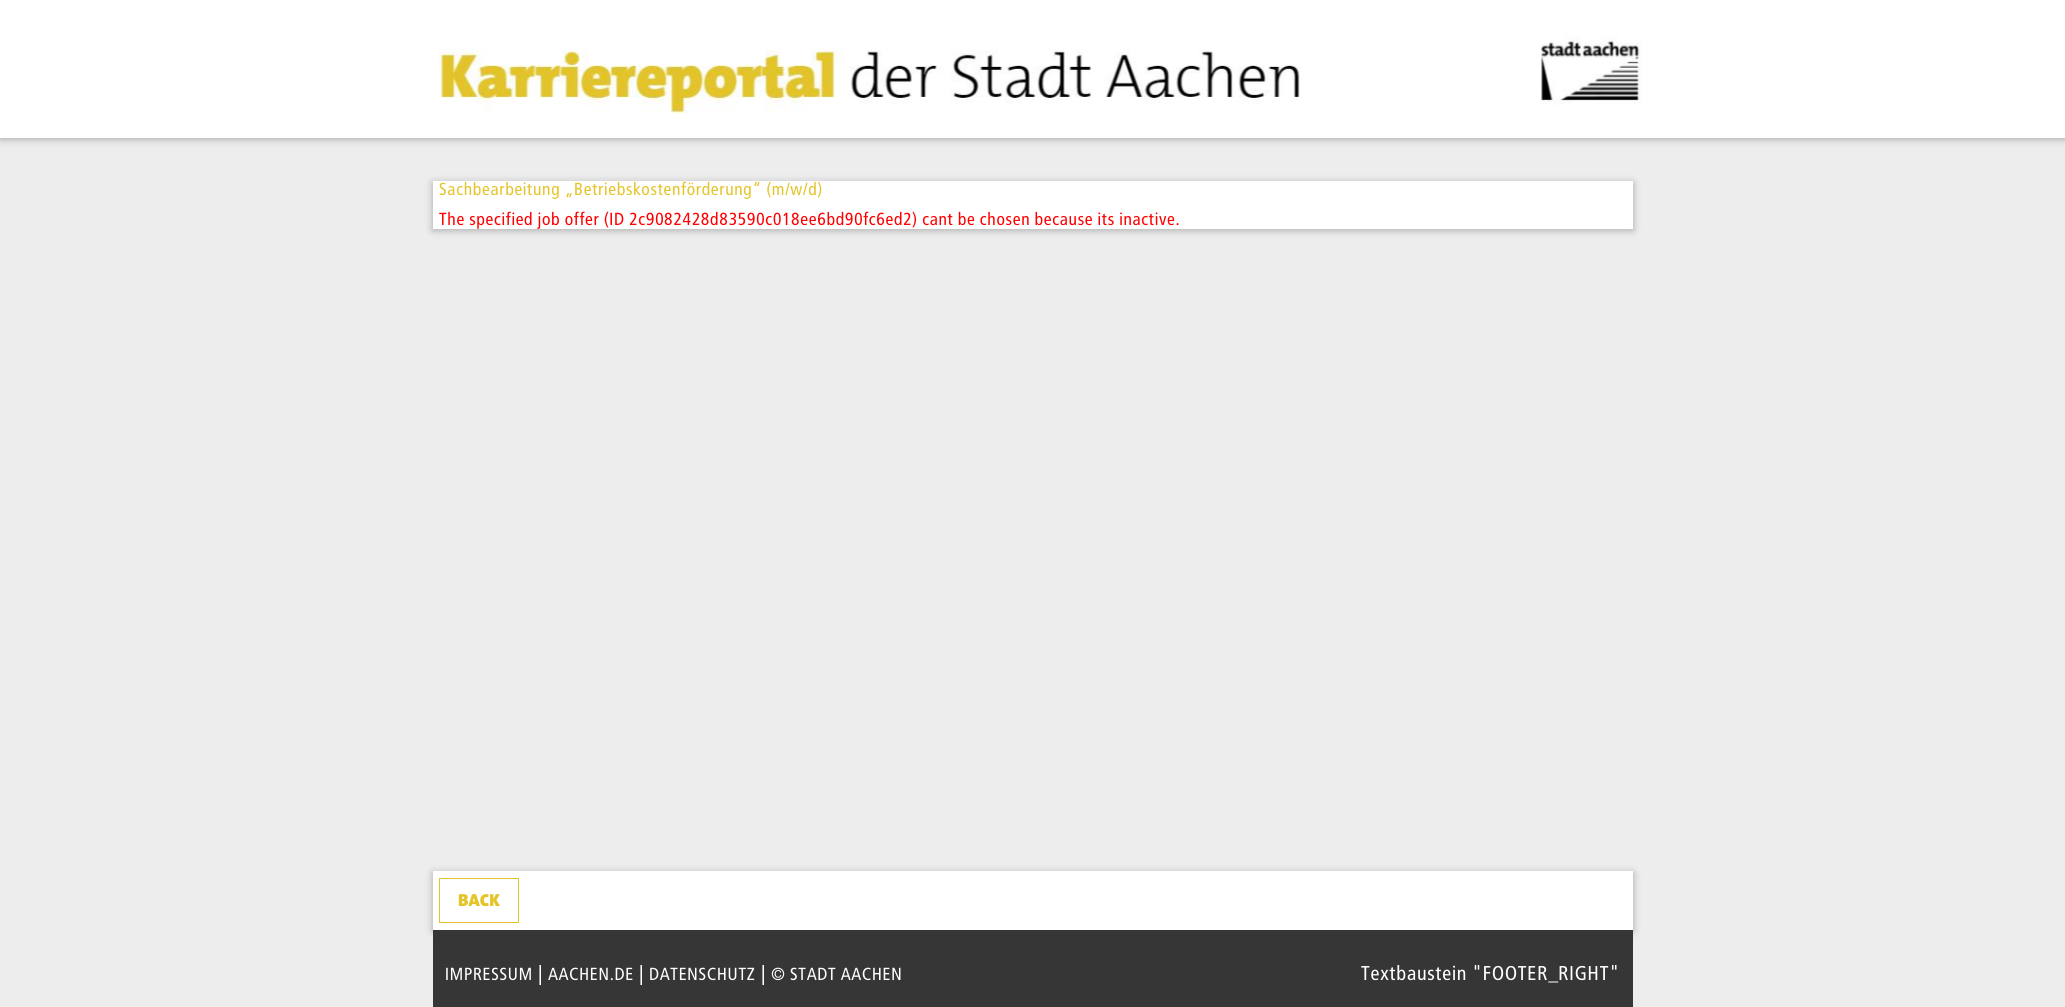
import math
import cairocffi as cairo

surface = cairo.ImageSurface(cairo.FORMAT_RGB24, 2065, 1007)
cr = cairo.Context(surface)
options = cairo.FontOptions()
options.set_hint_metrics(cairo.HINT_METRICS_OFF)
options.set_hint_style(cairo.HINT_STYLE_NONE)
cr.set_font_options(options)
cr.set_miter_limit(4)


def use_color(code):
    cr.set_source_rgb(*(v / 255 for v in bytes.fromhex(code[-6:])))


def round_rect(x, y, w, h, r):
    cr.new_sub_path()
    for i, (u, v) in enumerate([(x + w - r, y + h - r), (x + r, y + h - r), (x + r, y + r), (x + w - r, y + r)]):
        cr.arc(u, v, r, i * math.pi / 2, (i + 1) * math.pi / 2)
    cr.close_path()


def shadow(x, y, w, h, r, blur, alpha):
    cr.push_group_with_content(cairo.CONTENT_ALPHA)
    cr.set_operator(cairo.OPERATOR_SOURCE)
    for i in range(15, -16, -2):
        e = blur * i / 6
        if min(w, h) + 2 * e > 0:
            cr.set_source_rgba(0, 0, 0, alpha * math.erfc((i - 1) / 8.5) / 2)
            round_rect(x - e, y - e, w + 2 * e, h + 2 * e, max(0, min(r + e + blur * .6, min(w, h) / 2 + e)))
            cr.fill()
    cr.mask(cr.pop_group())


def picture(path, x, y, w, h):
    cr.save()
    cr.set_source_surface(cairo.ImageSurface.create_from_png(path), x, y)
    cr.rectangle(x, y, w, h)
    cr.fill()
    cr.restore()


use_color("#ededed")
cr.paint()
use_color("#000000")
shadow(433, 183, 1200, 47, 0, 4, 0.3)
use_color("#ffffff")
cr.rectangle(433, 181, 1200, 48)
cr.fill()
use_color("#000000")
shadow(0, 1, 2065, 138, 0, 4, 0.3)
use_color("#ffffff")
cr.rectangle(0, 0, 2065, 138)
cr.fill()
picture("img1.png", 438, 36, 1204, 78)
cr.select_font_face("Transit")
cr.set_font_size(17.5)
use_color("#e4c42b")
cr.move_to(439, 195)
cr.show_text("Sachbearbeitung „Betriebskostenförderung“ (m/w/d)")
use_color("#ff0000")
cr.move_to(439, 225)
cr.show_text("The specified job offer (ID 2c9082428d83590c018ee6bd90fc6ed2) cant be chosen because its inactive.")
use_color("#000000")
shadow(433, 873, 1200, 58, 0, 4, 0.3)
use_color("#ffffff")
cr.rectangle(433, 871, 1200, 59)
cr.fill()
cr.rectangle(439.5, 878.5, 79, 44)
use_color("#e4c42b")
cr.set_line_width(1)
cr.stroke()
cr.select_font_face("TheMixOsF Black")
cr.move_to(458, 906)
cr.show_text("BACK")
use_color("#363636")
cr.rectangle(433, 930, 1200, 77)
cr.fill()
cr.select_font_face("Transit")
use_color("#ffffff")
cr.move_to(445, 980)
cr.show_text("IMPRESSUM")
cr.set_font_size(20)
cr.move_to(538, 980)
cr.show_text("|")
cr.set_font_size(17.5)
cr.move_to(548, 980)
cr.show_text("AACHEN.DE")
cr.set_font_size(20)
cr.move_to(639, 980)
cr.show_text("|")
cr.set_font_size(17.5)
cr.move_to(649, 980)
cr.show_text("DATENSCHUTZ")
cr.set_font_size(20)
cr.move_to(761, 980)
cr.show_text("|")
cr.set_font_size(17.5)
cr.move_to(771, 980)
cr.show_text("© STADT AACHEN")
cr.set_font_size(20)
cr.move_to(1361, 980)
cr.show_text("Textbaustein \"FOOTER_RIGHT\"")
surface.write_to_png("result.png")
